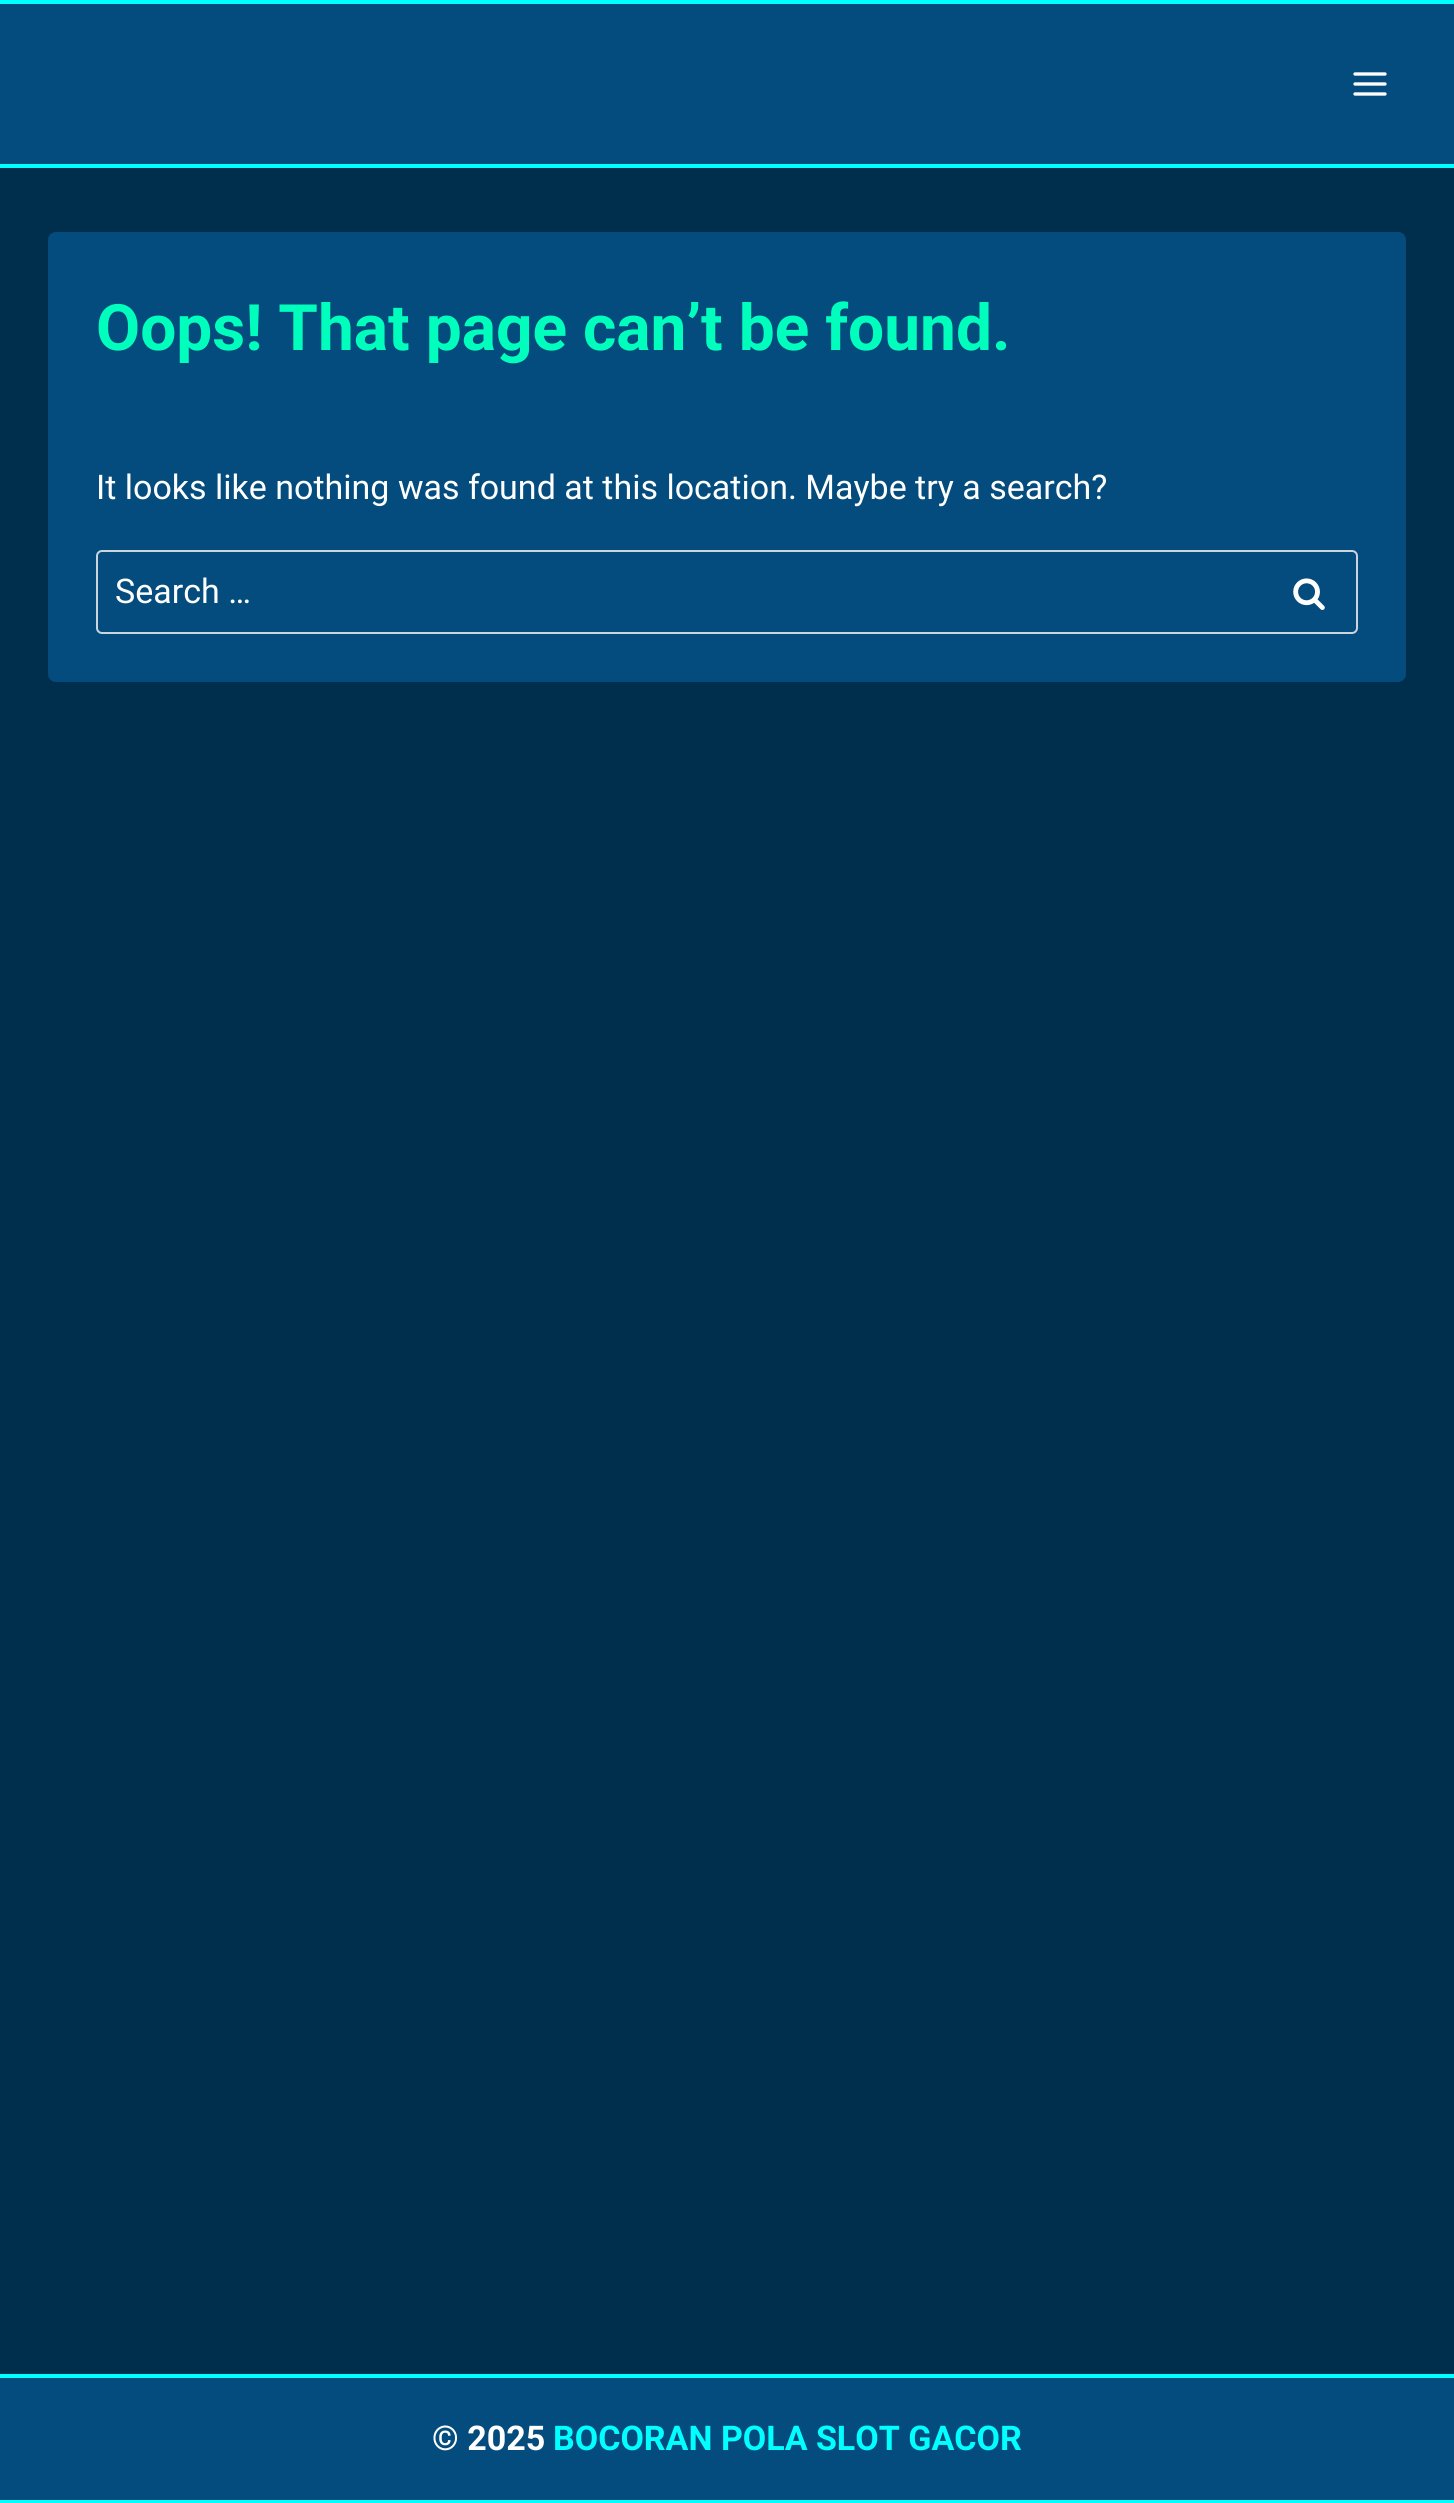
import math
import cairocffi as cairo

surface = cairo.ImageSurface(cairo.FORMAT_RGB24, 1454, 2503)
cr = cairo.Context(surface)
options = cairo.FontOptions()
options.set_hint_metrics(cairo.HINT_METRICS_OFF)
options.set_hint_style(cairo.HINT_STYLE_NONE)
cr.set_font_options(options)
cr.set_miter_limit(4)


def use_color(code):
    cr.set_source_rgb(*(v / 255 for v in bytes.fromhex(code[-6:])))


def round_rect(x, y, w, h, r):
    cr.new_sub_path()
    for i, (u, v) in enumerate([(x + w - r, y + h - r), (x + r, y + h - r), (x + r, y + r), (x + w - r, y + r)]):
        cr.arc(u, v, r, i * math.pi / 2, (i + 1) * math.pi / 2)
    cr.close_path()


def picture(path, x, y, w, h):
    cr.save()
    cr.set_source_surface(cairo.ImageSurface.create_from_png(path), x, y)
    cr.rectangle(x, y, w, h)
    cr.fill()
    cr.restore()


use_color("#002e4d")
cr.paint()
use_color("#034c7d")
cr.rectangle(0, 4, 1454, 160)
cr.fill()
use_color("#00ffff")
cr.rectangle(0, 0, 1454, 4)
cr.fill()
cr.rectangle(0, 164, 1454, 4)
cr.fill()
picture("img1.png", 1353, 72, 34, 24)
use_color("#034c7d")
round_rect(48, 232, 1358, 450, 8)
cr.fill()
cr.select_font_face("Roboto", cairo.FONT_SLANT_NORMAL, cairo.FONT_WEIGHT_BOLD)
cr.set_font_size(64)
use_color("#00ffbc")
cr.move_to(96, 350)
cr.show_text("Oops! That page can’t be found.")
cr.select_font_face("Roboto")
cr.set_font_size(34)
use_color("#ffffff")
cr.move_to(96, 499)
cr.show_text("It looks like nothing was found at this location. Maybe try a search?")
round_rect(97, 551, 1260, 82, 5)
use_color("#cbd5e0")
cr.stroke()
use_color("#ffffff")
cr.move_to(115, 603)
cr.show_text("Search …")
picture("img2.png", 1293, 578, 32, 32)
use_color("#034c7d")
cr.rectangle(0, 2378, 1454, 122)
cr.fill()
use_color("#00ffff")
cr.rectangle(0, 2374, 1454, 4)
cr.fill()
cr.rectangle(0, 2500, 1454, 3)
cr.fill()
cr.select_font_face("Roboto", cairo.FONT_SLANT_NORMAL, cairo.FONT_WEIGHT_BOLD)
use_color("#ffffff")
cr.move_to(432, 2450)
cr.show_text("© 2025")
use_color("#00ffff")
cr.move_to(553, 2450)
cr.show_text("BOCORAN POLA SLOT GACOR")
surface.write_to_png("result.png")
